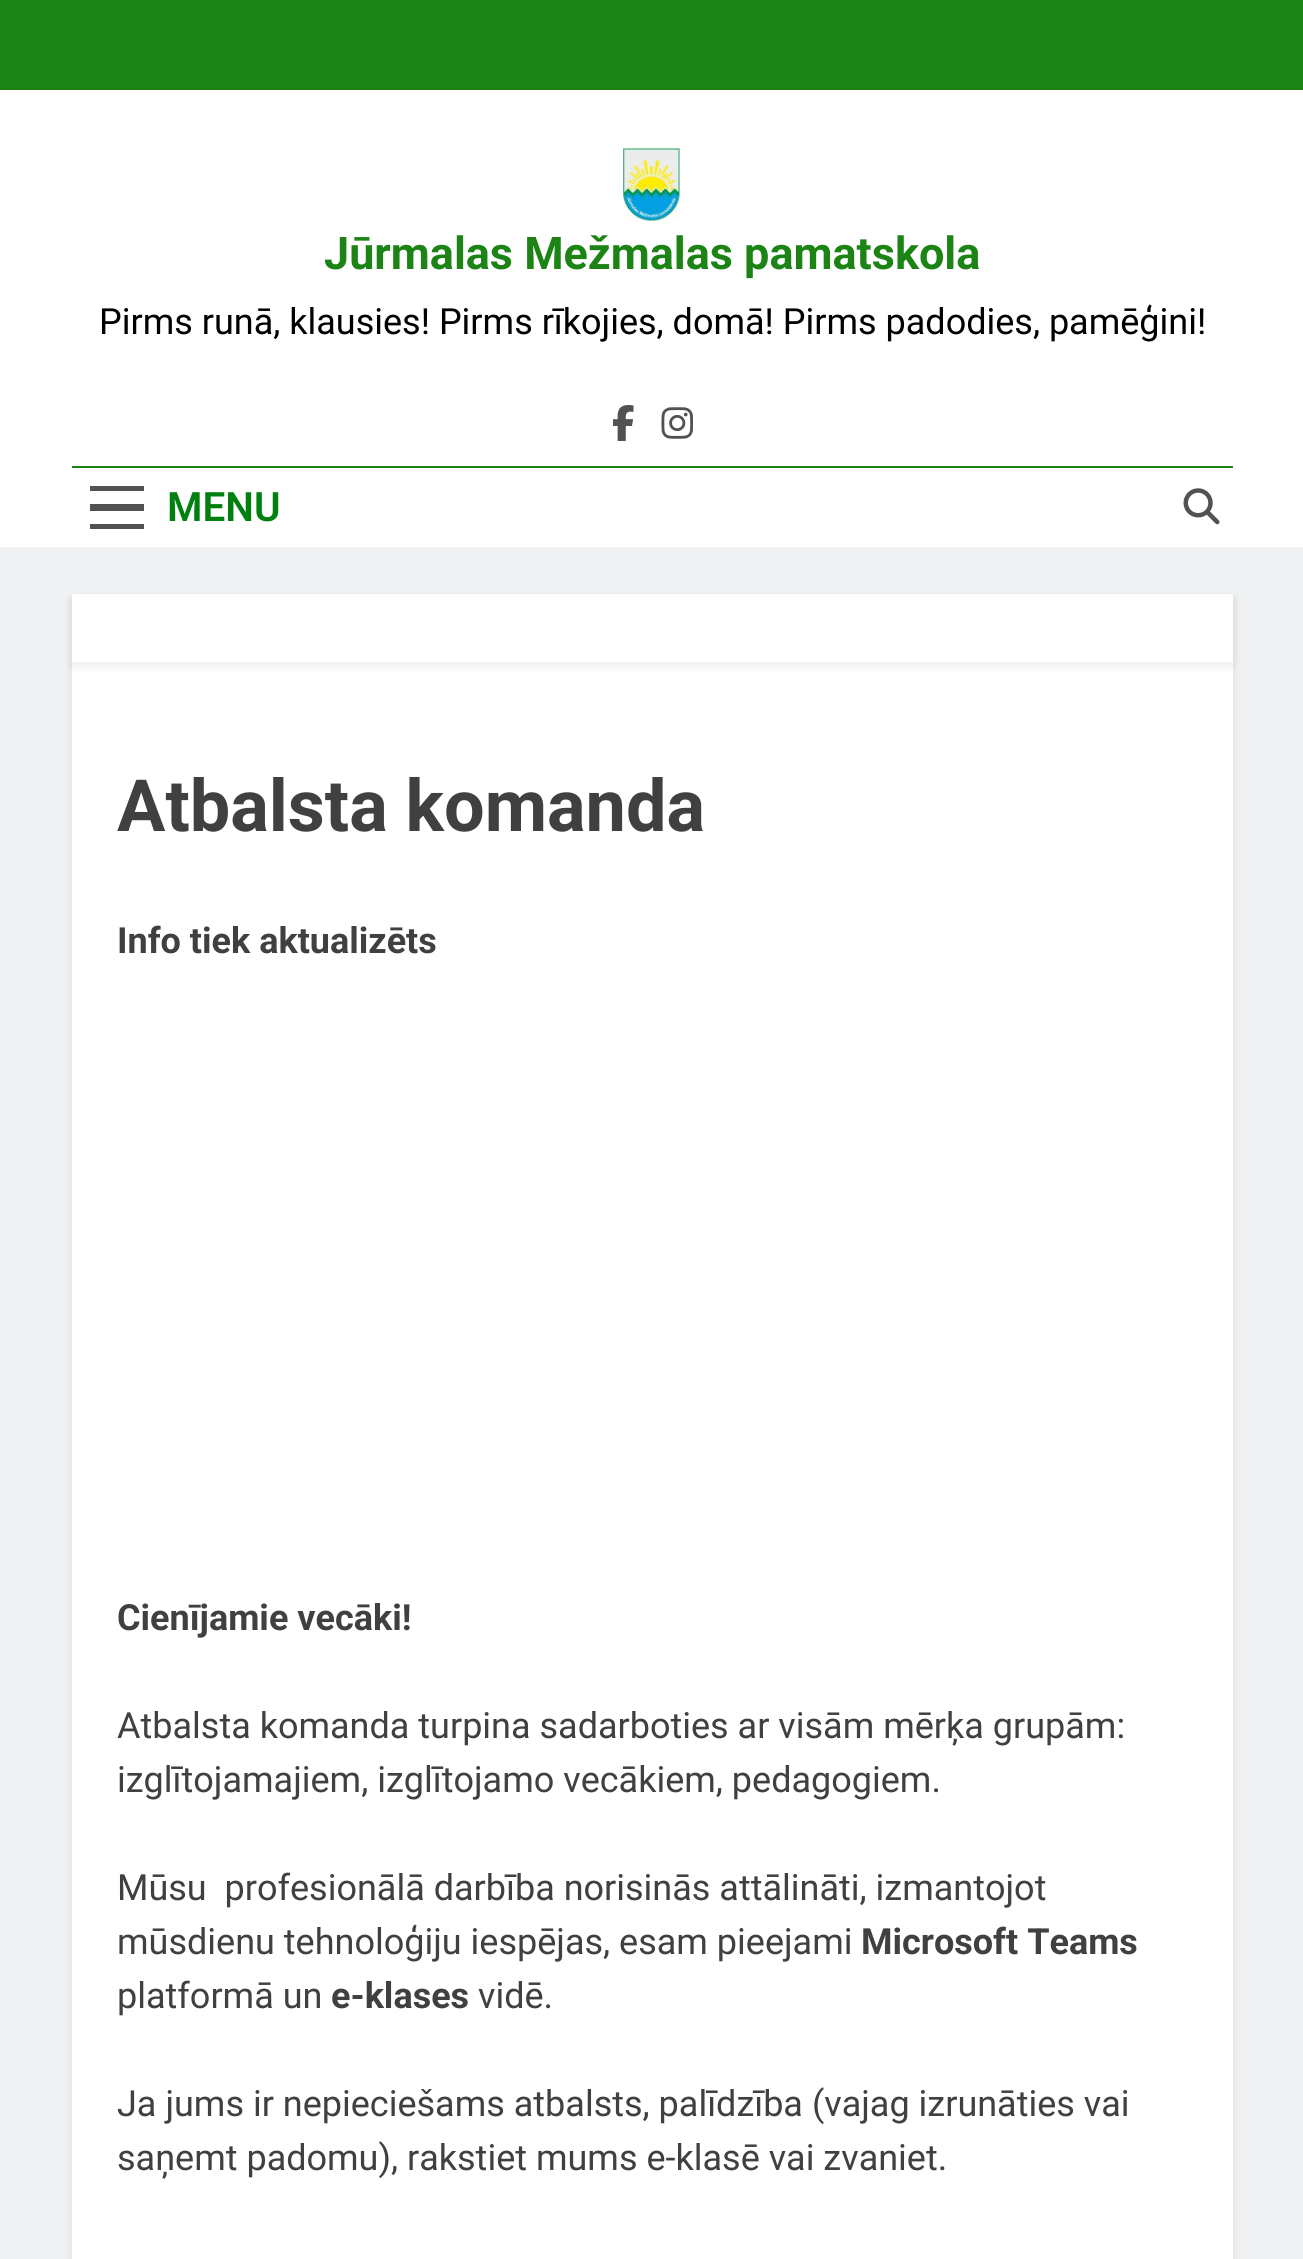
import math
import cairocffi as cairo

surface = cairo.ImageSurface(cairo.FORMAT_RGB24, 1303, 2259)
cr = cairo.Context(surface)
options = cairo.FontOptions()
options.set_hint_metrics(cairo.HINT_METRICS_OFF)
options.set_hint_style(cairo.HINT_STYLE_NONE)
cr.set_font_options(options)
cr.set_miter_limit(4)


def use_color(code):
    cr.set_source_rgb(*(v / 255 for v in bytes.fromhex(code[-6:])))


def round_rect(x, y, w, h, r):
    cr.new_sub_path()
    for i, (u, v) in enumerate([(x + w - r, y + h - r), (x + r, y + h - r), (x + r, y + r), (x + w - r, y + r)]):
        cr.arc(u, v, r, i * math.pi / 2, (i + 1) * math.pi / 2)
    cr.close_path()


def shadow(x, y, w, h, r, blur, alpha):
    cr.push_group_with_content(cairo.CONTENT_ALPHA)
    cr.set_operator(cairo.OPERATOR_SOURCE)
    for i in range(15, -16, -2):
        e = blur * i / 6
        if min(w, h) + 2 * e > 0:
            cr.set_source_rgba(0, 0, 0, alpha * math.erfc((i - 1) / 8.5) / 2)
            round_rect(x - e, y - e, w + 2 * e, h + 2 * e, max(0, min(r + e + blur * .6, min(w, h) / 2 + e)))
            cr.fill()
    cr.mask(cr.pop_group())


def picture(path, x, y, w, h):
    cr.save()
    cr.set_source_surface(cairo.ImageSurface.create_from_png(path), x, y)
    cr.rectangle(x, y, w, h)
    cr.fill()
    cr.restore()


use_color("#f0f1f2")
cr.paint()
use_color("#1b8415")
cr.rectangle(0, 0, 1303, 90)
cr.fill()
use_color("#ffffff")
cr.rectangle(0, 90, 1303, 457)
cr.fill()
picture("img1.png", 623, 148, 57, 73)
cr.select_font_face("Roboto", cairo.FONT_SLANT_NORMAL, cairo.FONT_WEIGHT_BOLD)
cr.set_font_size(45)
use_color("#1b8415")
cr.move_to(324, 269)
cr.show_text("Jūrmalas Mežmalas pamatskola")
cr.select_font_face("Roboto")
cr.set_font_size(36)
use_color("#000000")
cr.move_to(99, 334)
cr.show_text("Pirms runā, klausies! Pirms rīkojies, domā! Pirms padodies, pamēģini!")
picture("img2.png", 613, 405, 21, 36)
picture("img3.png", 661, 407, 32, 32)
use_color("#1b8415")
cr.rectangle(72, 466, 1161, 2)
cr.fill()
use_color("#525252")
cr.rectangle(90, 486, 54, 5)
cr.fill()
cr.rectangle(90, 504, 54, 7)
cr.fill()
cr.rectangle(90, 524, 54, 5)
cr.fill()
cr.select_font_face("Roboto SemiBold")
cr.set_font_size(40.5)
use_color("#00800f")
cr.move_to(167, 521)
cr.show_text("MENU")
picture("img4.png", 1183, 488, 37, 37)
use_color("#000000")
shadow(72, 599, 1161, 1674, 0, 4.5, 0.08)
use_color("#ffffff")
cr.rectangle(72, 662, 1161, 1597)
cr.fill()
use_color("#000000")
shadow(72, 599, 1161, 67, 0, 4.5, 0.08)
use_color("#ffffff")
cr.rectangle(72, 594, 1161, 68)
cr.fill()
cr.select_font_face("Roboto", cairo.FONT_SLANT_NORMAL, cairo.FONT_WEIGHT_BOLD)
cr.set_font_size(72)
use_color("#404040")
cr.move_to(117, 831)
cr.show_text("Atbalsta komanda")
cr.set_font_size(36)
cr.move_to(117, 953)
cr.show_text("Info tiek aktualizēts")
cr.move_to(117, 1630)
cr.show_text("Cienījamie vecāki!")
cr.select_font_face("Roboto")
cr.move_to(117, 1738)
cr.show_text("Atbalsta komanda turpina sadarboties ar visām mērķa grupām:")
cr.move_to(117, 1792)
cr.show_text("izglītojamajiem, izglītojamo vecākiem, pedagogiem.")
cr.move_to(117, 1900)
cr.show_text("Mūsu  profesionālā darbība norisinās attālināti, izmantojot")
cr.move_to(117, 1954)
cr.show_text("mūsdienu tehnoloģiju iespējas, esam pieejami")
cr.select_font_face("Roboto", cairo.FONT_SLANT_NORMAL, cairo.FONT_WEIGHT_BOLD)
cr.move_to(861, 1954)
cr.show_text("Miсrosoft Teams")
cr.select_font_face("Roboto")
cr.move_to(117, 2008)
cr.show_text("platformā un")
cr.select_font_face("Roboto", cairo.FONT_SLANT_NORMAL, cairo.FONT_WEIGHT_BOLD)
cr.move_to(331, 2008)
cr.show_text("e-klases")
cr.select_font_face("Roboto")
cr.move_to(478, 2008)
cr.show_text("vidē.")
cr.move_to(117, 2116)
cr.show_text("Ja jums ir nepieciešams atbalsts, palīdzība (vajag izrunāties vai")
cr.move_to(117, 2170)
cr.show_text("saņemt padomu), rakstiet mums e-klasē vai zvaniet.")
surface.write_to_png("result.png")
